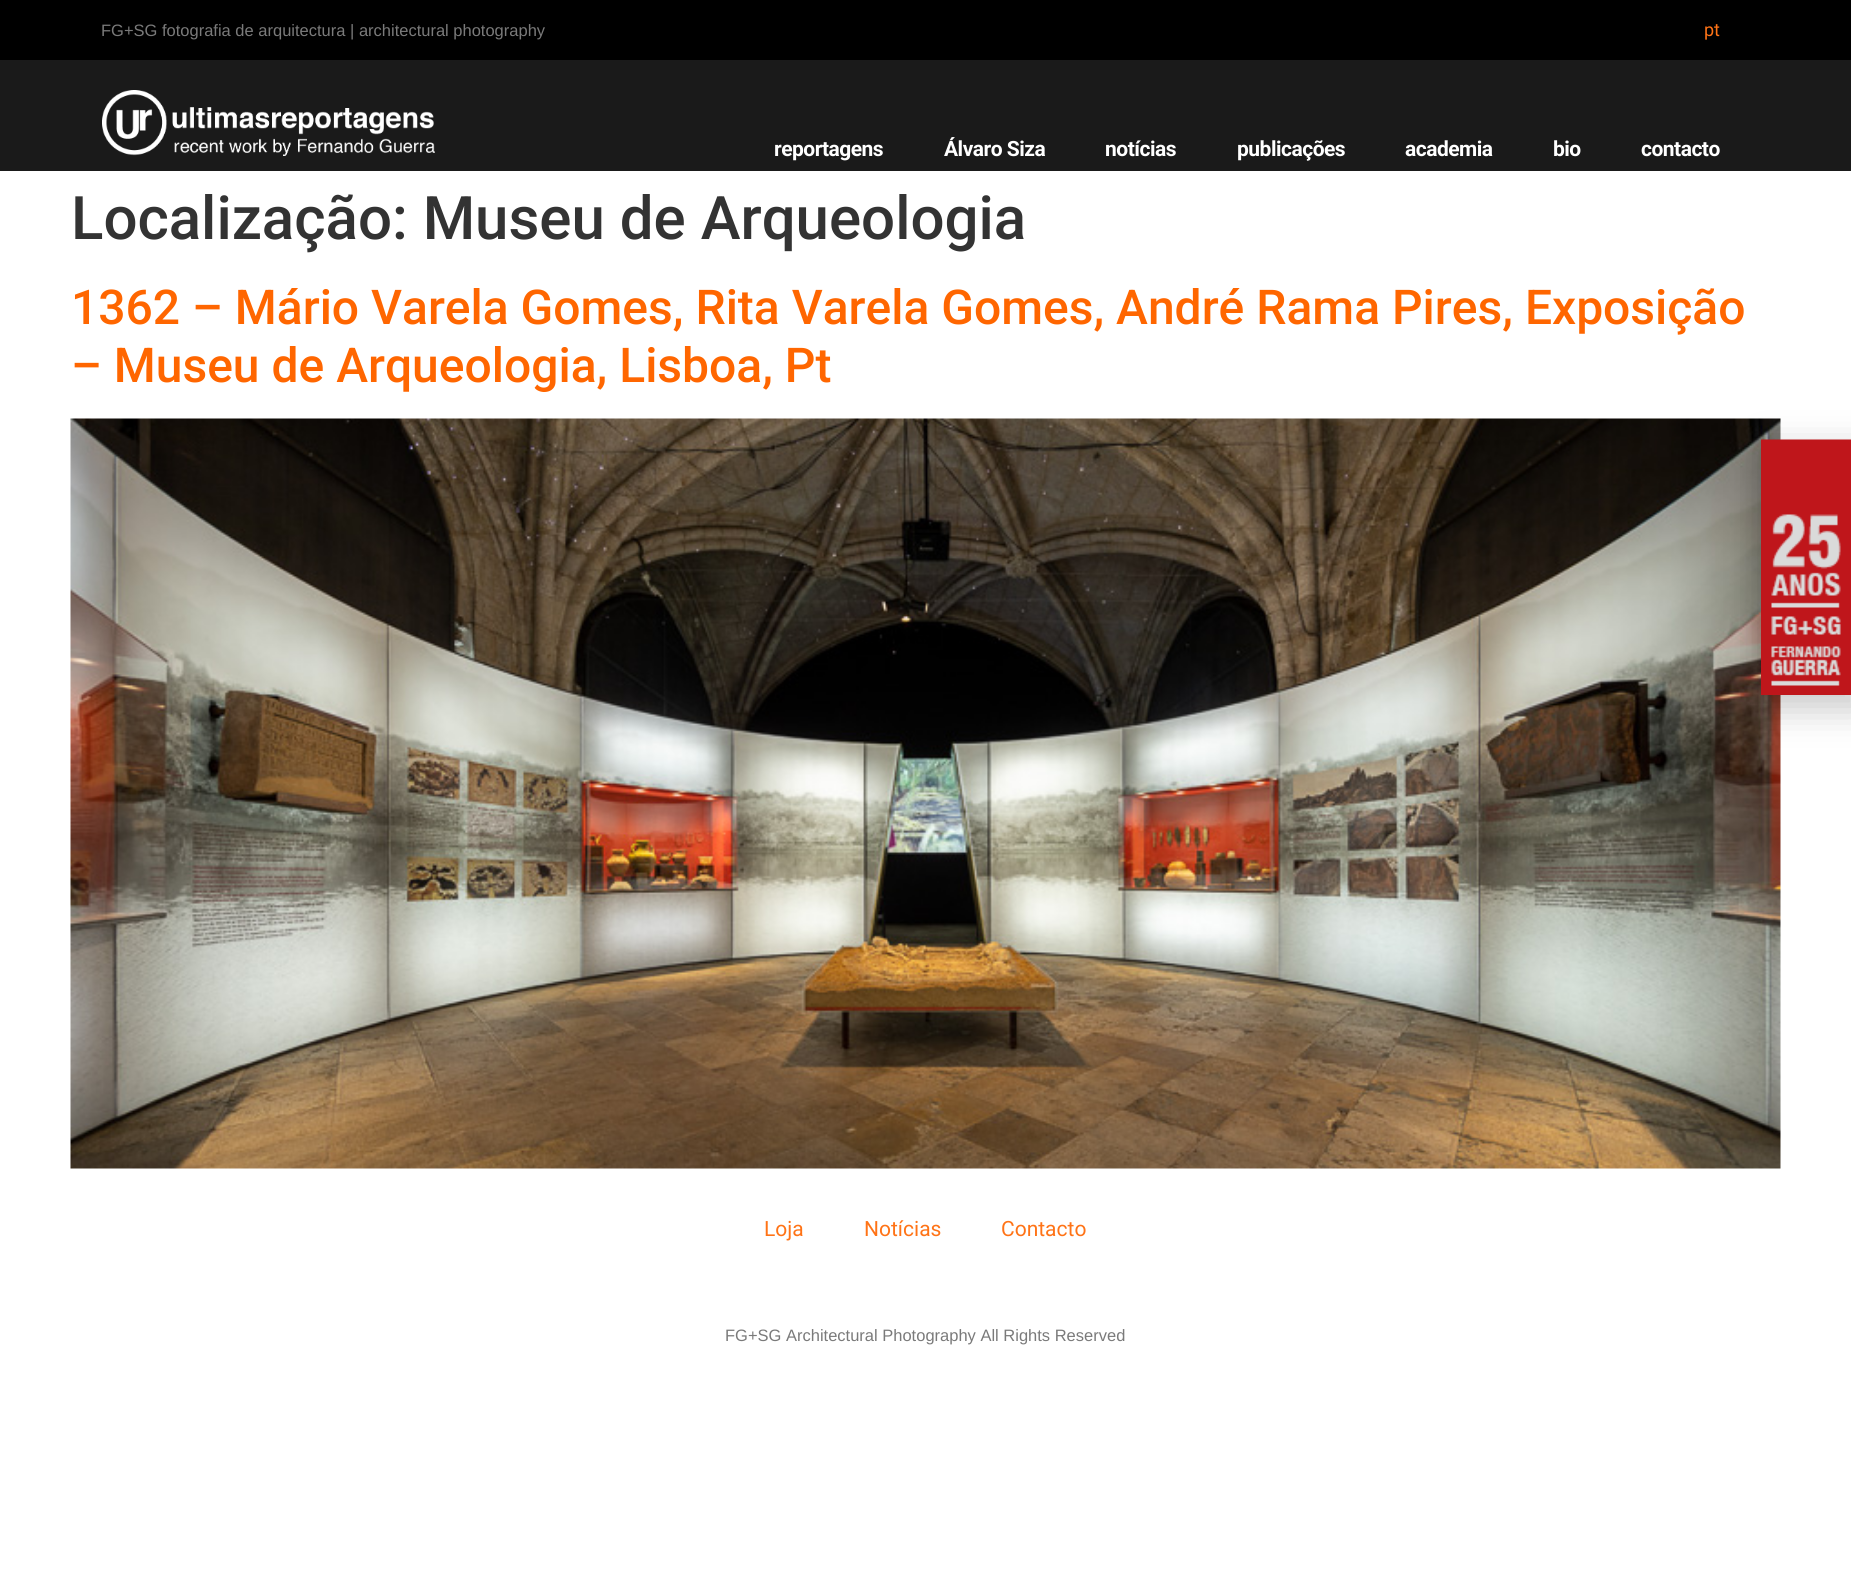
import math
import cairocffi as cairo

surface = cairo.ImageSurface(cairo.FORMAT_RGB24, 1851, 1590)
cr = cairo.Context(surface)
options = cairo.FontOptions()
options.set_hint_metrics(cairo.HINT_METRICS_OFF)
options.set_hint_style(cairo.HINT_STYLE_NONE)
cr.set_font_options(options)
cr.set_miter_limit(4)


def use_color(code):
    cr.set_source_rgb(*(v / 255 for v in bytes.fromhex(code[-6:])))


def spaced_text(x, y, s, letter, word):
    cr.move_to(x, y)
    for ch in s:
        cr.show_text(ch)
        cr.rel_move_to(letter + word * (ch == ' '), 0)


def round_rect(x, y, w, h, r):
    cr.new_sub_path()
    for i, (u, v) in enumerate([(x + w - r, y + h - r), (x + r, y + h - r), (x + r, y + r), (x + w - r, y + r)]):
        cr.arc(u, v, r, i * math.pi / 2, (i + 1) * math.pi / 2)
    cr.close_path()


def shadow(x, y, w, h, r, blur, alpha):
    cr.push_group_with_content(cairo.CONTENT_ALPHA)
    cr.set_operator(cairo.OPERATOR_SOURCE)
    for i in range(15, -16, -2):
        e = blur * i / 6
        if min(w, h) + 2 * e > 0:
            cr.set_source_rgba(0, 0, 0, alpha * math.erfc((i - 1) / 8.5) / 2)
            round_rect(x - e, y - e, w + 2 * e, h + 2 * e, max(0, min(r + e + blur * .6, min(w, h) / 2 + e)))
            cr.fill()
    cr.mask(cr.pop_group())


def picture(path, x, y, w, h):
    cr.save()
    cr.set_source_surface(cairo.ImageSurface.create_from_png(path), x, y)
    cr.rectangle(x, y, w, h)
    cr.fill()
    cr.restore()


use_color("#ffffff")
cr.paint()
use_color("#000000")
cr.rectangle(0, 0, 1851, 60)
cr.fill()
cr.select_font_face("Liberation Sans")
cr.set_font_size(16.5)
use_color("#7a7a7a")
cr.move_to(101, 36)
cr.show_text("FG+SG fotografia de arquitectura | architectural photography")
cr.select_font_face("Roboto")
cr.set_font_size(18)
use_color("#ff7316")
cr.move_to(1704, 36)
cr.show_text("pt")
use_color("#1a1a1a")
cr.rectangle(0, 60, 1851, 111)
cr.fill()
picture("img1.png", 102, 90, 333, 66)
cr.select_font_face("Roboto", cairo.FONT_SLANT_NORMAL, cairo.FONT_WEIGHT_BOLD)
cr.set_font_size(21)
use_color("#ffffff")
spaced_text(774, 156, "reportagens", -0.5, 0)
spaced_text(944, 156, "Álvaro Siza", -0.5, 0)
spaced_text(1105, 156, "notícias", -0.5, 0)
spaced_text(1237, 156, "publicações", -0.5, 0)
spaced_text(1405, 156, "academia", -0.5, 0)
spaced_text(1553, 156, "bio", -0.5, 0)
spaced_text(1641, 156, "contacto", -0.5, 0)
cr.select_font_face("Roboto Medium")
cr.set_font_size(60)
use_color("#333333")
cr.move_to(71, 239)
cr.show_text("Localização: Museu de Arqueologia")
cr.set_font_size(48)
use_color("#ff6600")
cr.move_to(71, 324)
cr.show_text("1362 – Mário Varela Gomes, Rita Varela Gomes, André Rama Pires, Exposição")
cr.move_to(71, 382)
cr.show_text("– Museu de Arqueologia, Lisboa, Pt")
picture("img2.png", 70, 418, 1711, 751)
use_color("#000000")
shadow(1760, 447, 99, 264, 0, 17, 0.2)
picture("img3.png", 1761, 439, 90, 256)
cr.select_font_face("Roboto")
cr.set_font_size(21)
use_color("#ff7316")
cr.move_to(764, 1236)
cr.show_text("Loja")
cr.move_to(864, 1236)
cr.show_text("Notícias")
cr.move_to(1001, 1236)
cr.show_text("Contacto")
cr.select_font_face("Liberation Sans")
cr.set_font_size(16.5)
use_color("#7a7a7a")
cr.move_to(725, 1341)
cr.show_text("FG+SG Architectural Photography All Rights Reserved")
surface.write_to_png("result.png")
